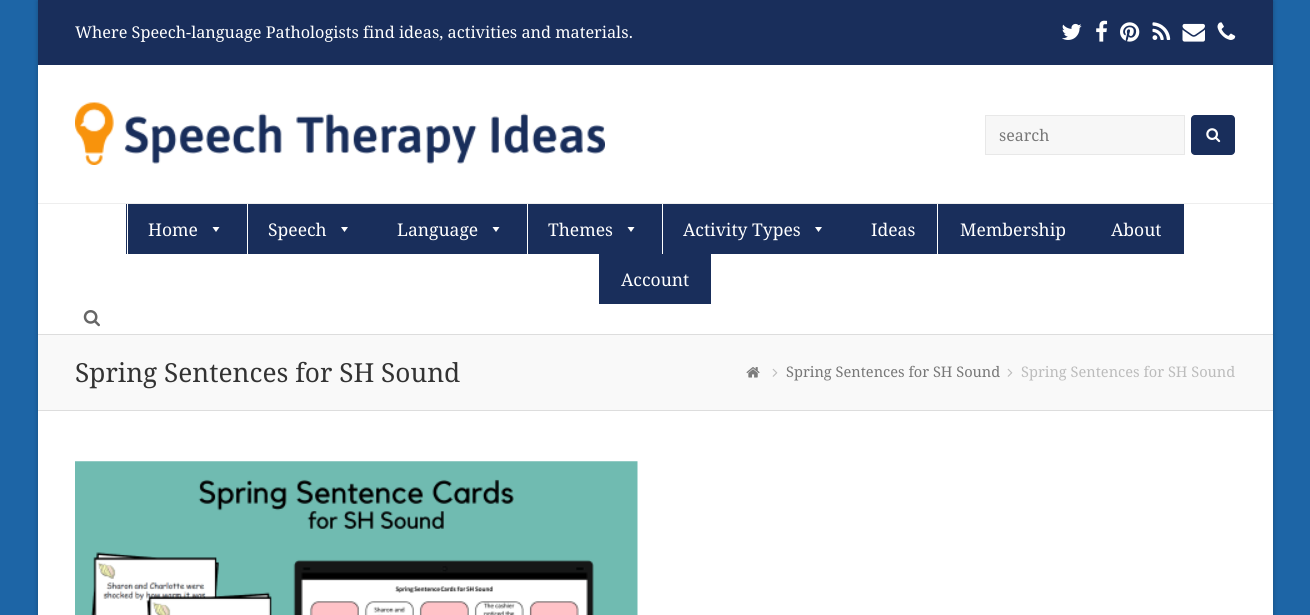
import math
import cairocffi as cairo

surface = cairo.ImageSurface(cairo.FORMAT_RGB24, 1310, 615)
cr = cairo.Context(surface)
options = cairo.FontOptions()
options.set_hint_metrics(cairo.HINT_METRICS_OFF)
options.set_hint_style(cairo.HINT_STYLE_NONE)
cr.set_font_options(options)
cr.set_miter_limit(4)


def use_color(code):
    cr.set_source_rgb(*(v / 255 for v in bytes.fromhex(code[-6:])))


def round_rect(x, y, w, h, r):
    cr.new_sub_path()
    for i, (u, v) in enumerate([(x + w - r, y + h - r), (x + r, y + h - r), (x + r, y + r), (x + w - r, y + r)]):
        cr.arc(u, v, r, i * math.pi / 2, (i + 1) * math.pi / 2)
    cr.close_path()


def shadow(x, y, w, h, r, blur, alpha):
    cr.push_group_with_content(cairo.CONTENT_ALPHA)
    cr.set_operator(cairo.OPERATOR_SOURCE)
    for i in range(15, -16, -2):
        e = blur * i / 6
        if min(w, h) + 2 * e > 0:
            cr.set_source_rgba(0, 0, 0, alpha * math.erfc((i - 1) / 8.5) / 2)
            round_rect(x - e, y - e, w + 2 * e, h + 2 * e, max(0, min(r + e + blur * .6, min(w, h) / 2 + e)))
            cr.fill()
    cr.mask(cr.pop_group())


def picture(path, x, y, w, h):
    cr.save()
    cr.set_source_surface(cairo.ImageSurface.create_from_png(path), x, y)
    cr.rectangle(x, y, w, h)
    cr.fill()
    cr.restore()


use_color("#1d65a6")
cr.paint()
use_color("#000000")
shadow(38, 1, 1235, 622, 0, 2.5, 0.25)
use_color("#ffffff")
cr.rectangle(38, 65, 1235, 550)
cr.fill()
use_color("#192e5b")
cr.rectangle(38, 0, 1235, 65)
cr.fill()
cr.select_font_face("Droid Serif")
cr.set_font_size(16.25)
use_color("#ffffff")
cr.move_to(75, 38)
cr.show_text("Where Speech-language Pathologists find ideas, activities and materials.")
picture("img1.png", 1062, 23, 20, 17)
picture("img2.png", 1096, 20, 12, 22)
picture("img3.png", 1120, 22, 20, 20)
picture("img4.png", 1152, 22, 19, 18)
picture("img5.png", 1182, 23, 23, 19)
picture("img6.png", 1217, 22, 19, 18)
picture("img7.png", 75, 102, 530, 63)
use_color("#f7f7f7")
cr.rectangle(985.5, 115.5, 199, 39)
cr.fill_preserve()
use_color("#e8e8e8")
cr.set_line_width(1)
cr.stroke()
cr.set_font_size(16)
use_color("#777777")
cr.move_to(999, 141)
cr.show_text("search")
use_color("#192e5b")
round_rect(1191, 115, 44, 40, 4)
cr.fill()
picture("img8.png", 1206, 128, 15, 15)
use_color("#eeeeee")
cr.rectangle(38, 203, 1235, 1)
cr.fill()
use_color("#192e5b")
cr.rectangle(128, 204, 119, 50)
cr.fill()
cr.rectangle(126, 204, 1, 50)
cr.fill()
cr.set_font_size(17.5)
use_color("#ffffff")
cr.move_to(148, 236)
cr.show_text("Home")
cr.new_path()
cr.move_to(219.5, 227)
cr.line_to(216, 232)
cr.line_to(212.5, 227)
cr.close_path()
cr.fill()
use_color("#192e5b")
cr.rectangle(248, 204, 127, 50)
cr.fill()
use_color("#ffffff")
cr.move_to(268, 236)
cr.show_text("Speech")
cr.new_path()
cr.move_to(348, 227)
cr.line_to(344.5, 232)
cr.line_to(341, 227)
cr.close_path()
cr.fill()
use_color("#192e5b")
cr.rectangle(375, 204, 152, 50)
cr.fill()
use_color("#ffffff")
cr.move_to(397, 236)
cr.show_text("Language")
cr.new_path()
cr.move_to(499.5, 227)
cr.line_to(496, 232)
cr.line_to(492.5, 227)
cr.close_path()
cr.fill()
use_color("#192e5b")
cr.rectangle(528, 204, 134, 50)
cr.fill()
use_color("#ffffff")
cr.move_to(548, 236)
cr.show_text("Themes")
cr.new_path()
cr.move_to(634.5, 227)
cr.line_to(631, 232)
cr.line_to(627.5, 227)
cr.close_path()
cr.fill()
use_color("#192e5b")
cr.rectangle(663, 204, 186, 50)
cr.fill()
use_color("#ffffff")
cr.move_to(683, 236)
cr.show_text("Activity Types")
cr.new_path()
cr.move_to(822, 227)
cr.line_to(818.5, 232)
cr.line_to(815, 227)
cr.close_path()
cr.fill()
use_color("#192e5b")
cr.rectangle(849, 204, 88, 50)
cr.fill()
use_color("#ffffff")
cr.move_to(871, 236)
cr.show_text("Ideas")
use_color("#192e5b")
cr.rectangle(938, 204, 151, 50)
cr.fill()
use_color("#ffffff")
cr.move_to(960, 236)
cr.show_text("Membership")
use_color("#192e5b")
cr.rectangle(1089, 204, 95, 50)
cr.fill()
use_color("#ffffff")
cr.move_to(1111, 236)
cr.show_text("About")
use_color("#192e5b")
cr.rectangle(599, 254, 112, 50)
cr.fill()
use_color("#ffffff")
cr.move_to(621, 286)
cr.show_text("Account")
picture("img9.png", 83, 310, 17, 17)
use_color("#f9f9f9")
cr.rectangle(38, 335, 1235, 75)
cr.fill()
use_color("#dddddd")
cr.rectangle(38, 334, 1235, 1)
cr.fill()
cr.rectangle(38, 410, 1235, 1)
cr.fill()
cr.set_font_size(26.25)
use_color("#333333")
cr.move_to(75, 382)
cr.show_text("Spring Sentences for SH Sound")
picture("img10.png", 746, 367, 14, 11)
picture("img11.png", 772, 368, 6, 9)
cr.set_font_size(14.6)
use_color("#777777")
cr.move_to(786, 377)
cr.show_text("Spring Sentences for SH Sound")
picture("img11.png", 1007, 368, 6, 9)
use_color("#bcbcbc")
cr.move_to(1021, 377)
cr.show_text("Spring Sentences for SH Sound")
picture("img12.png", 75, 461, 563, 154)
surface.write_to_png("result.png")
